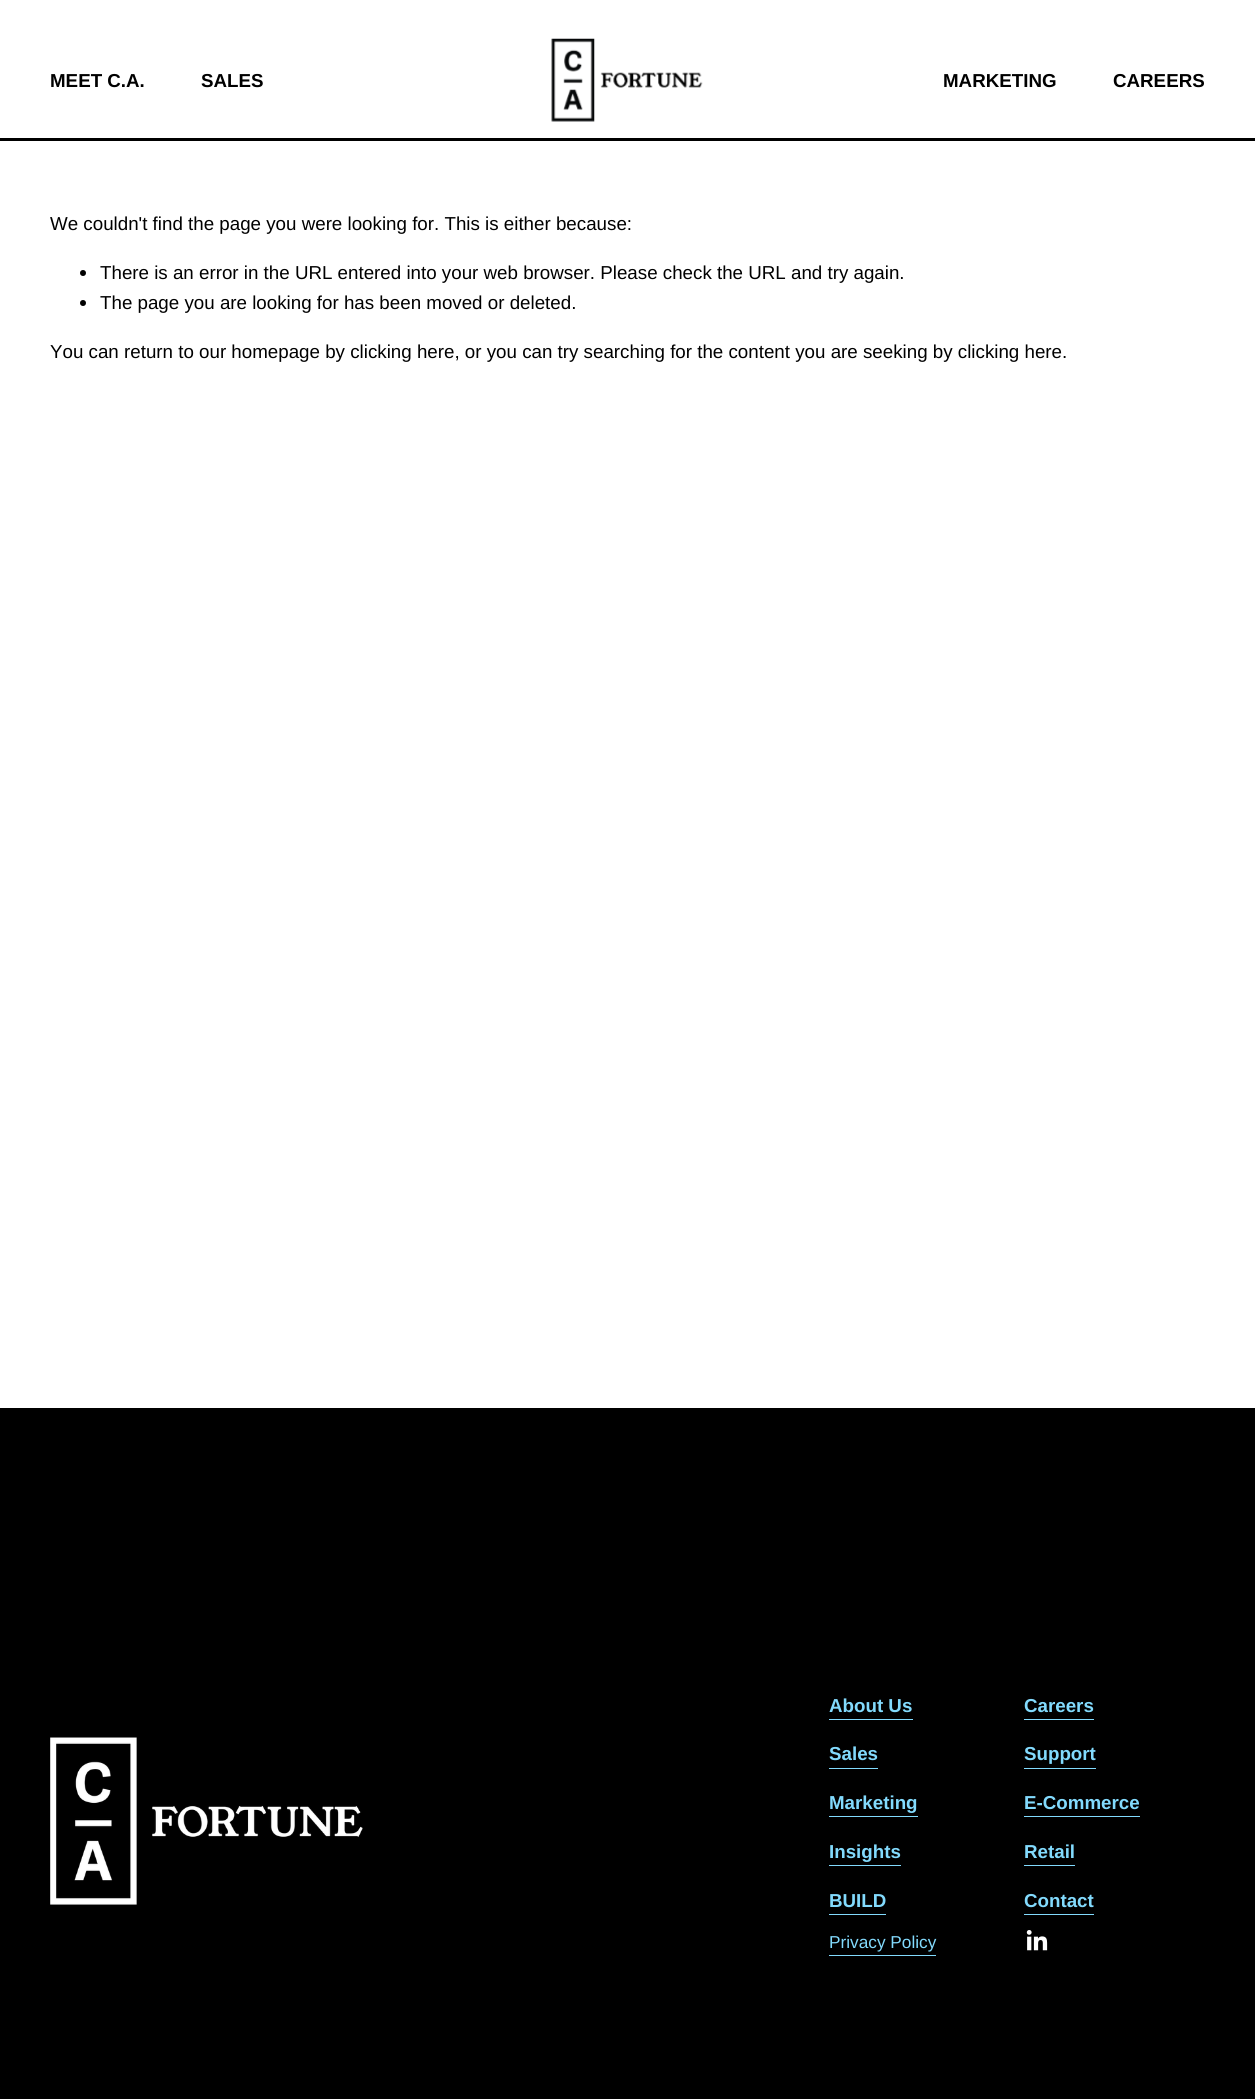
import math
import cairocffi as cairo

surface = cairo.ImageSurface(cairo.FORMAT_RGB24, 1255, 2099)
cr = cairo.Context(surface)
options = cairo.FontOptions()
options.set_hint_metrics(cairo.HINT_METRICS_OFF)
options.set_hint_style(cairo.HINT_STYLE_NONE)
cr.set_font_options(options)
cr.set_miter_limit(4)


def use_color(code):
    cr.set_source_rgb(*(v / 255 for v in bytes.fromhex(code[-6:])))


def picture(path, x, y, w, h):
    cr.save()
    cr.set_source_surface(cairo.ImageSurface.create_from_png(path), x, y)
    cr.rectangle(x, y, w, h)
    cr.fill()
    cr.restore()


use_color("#ffffff")
cr.paint()
cr.select_font_face("Liberation Sans", cairo.FONT_SLANT_NORMAL, cairo.FONT_WEIGHT_BOLD)
cr.set_font_size(18.75)
use_color("#000000")
cr.move_to(50, 87)
cr.show_text("MEET C.A.")
cr.move_to(201, 87)
cr.show_text("SALES")
picture("img1.png", 551, 38, 152, 84)
cr.move_to(943, 87)
cr.show_text("MARKETING")
cr.move_to(1113, 87)
cr.show_text("CAREERS")
cr.rectangle(0, 138, 1255, 3)
cr.fill()
cr.select_font_face("Liberation Sans")
cr.move_to(50, 230)
cr.show_text("We couldn't find the page you were looking for. This is either because:")
cr.new_path()
cr.arc(83, 273, 3, 0, 2 * math.pi)
cr.fill()
cr.move_to(100, 279)
cr.show_text("There is an error in the URL entered into your web browser. Please check the URL and try again.")
cr.new_path()
cr.arc(83, 303, 3, 0, 2 * math.pi)
cr.fill()
cr.move_to(100, 309)
cr.show_text("The page you are looking for has been moved or deleted.")
cr.move_to(50, 358)
cr.show_text("You can return to our homepage by clicking here, or you can try searching for the content you are seeking by clicking here.")
cr.rectangle(0, 1408, 1255, 691)
cr.fill()
picture("img2.png", 50, 1737, 313, 168)
use_color("#82dafd")
cr.rectangle(829, 1719, 84, 1)
cr.fill()
cr.select_font_face("Liberation Sans", cairo.FONT_SLANT_NORMAL, cairo.FONT_WEIGHT_BOLD)
cr.move_to(829, 1712)
cr.show_text("About Us")
cr.rectangle(829, 1768, 49, 1)
cr.fill()
cr.move_to(829, 1760)
cr.show_text("Sales")
cr.rectangle(829, 1816, 89, 1)
cr.fill()
cr.move_to(829, 1809)
cr.show_text("Marketing")
cr.rectangle(829, 1865, 72, 1)
cr.fill()
cr.move_to(829, 1858)
cr.show_text("Insights")
cr.rectangle(829, 1914, 57, 1)
cr.fill()
cr.move_to(829, 1907)
cr.show_text("BUILD")
cr.rectangle(1024, 1719, 70, 1)
cr.fill()
cr.move_to(1024, 1712)
cr.show_text("Careers")
cr.rectangle(1024, 1768, 72, 1)
cr.fill()
cr.move_to(1024, 1760)
cr.show_text("Support")
cr.rectangle(1024, 1816, 116, 1)
cr.fill()
cr.move_to(1024, 1809)
cr.show_text("E-Commerce")
cr.rectangle(1024, 1865, 51, 1)
cr.fill()
cr.move_to(1024, 1858)
cr.show_text("Retail")
cr.rectangle(1024, 1914, 70, 1)
cr.fill()
cr.move_to(1024, 1907)
cr.show_text("Contact")
cr.rectangle(829, 1955, 107, 1)
cr.fill()
cr.select_font_face("Liberation Sans")
cr.set_font_size(17.25)
cr.move_to(829, 1948)
cr.show_text("Privacy Policy")
picture("img3.png", 1026, 1930, 22, 21)
surface.write_to_png("result.png")
